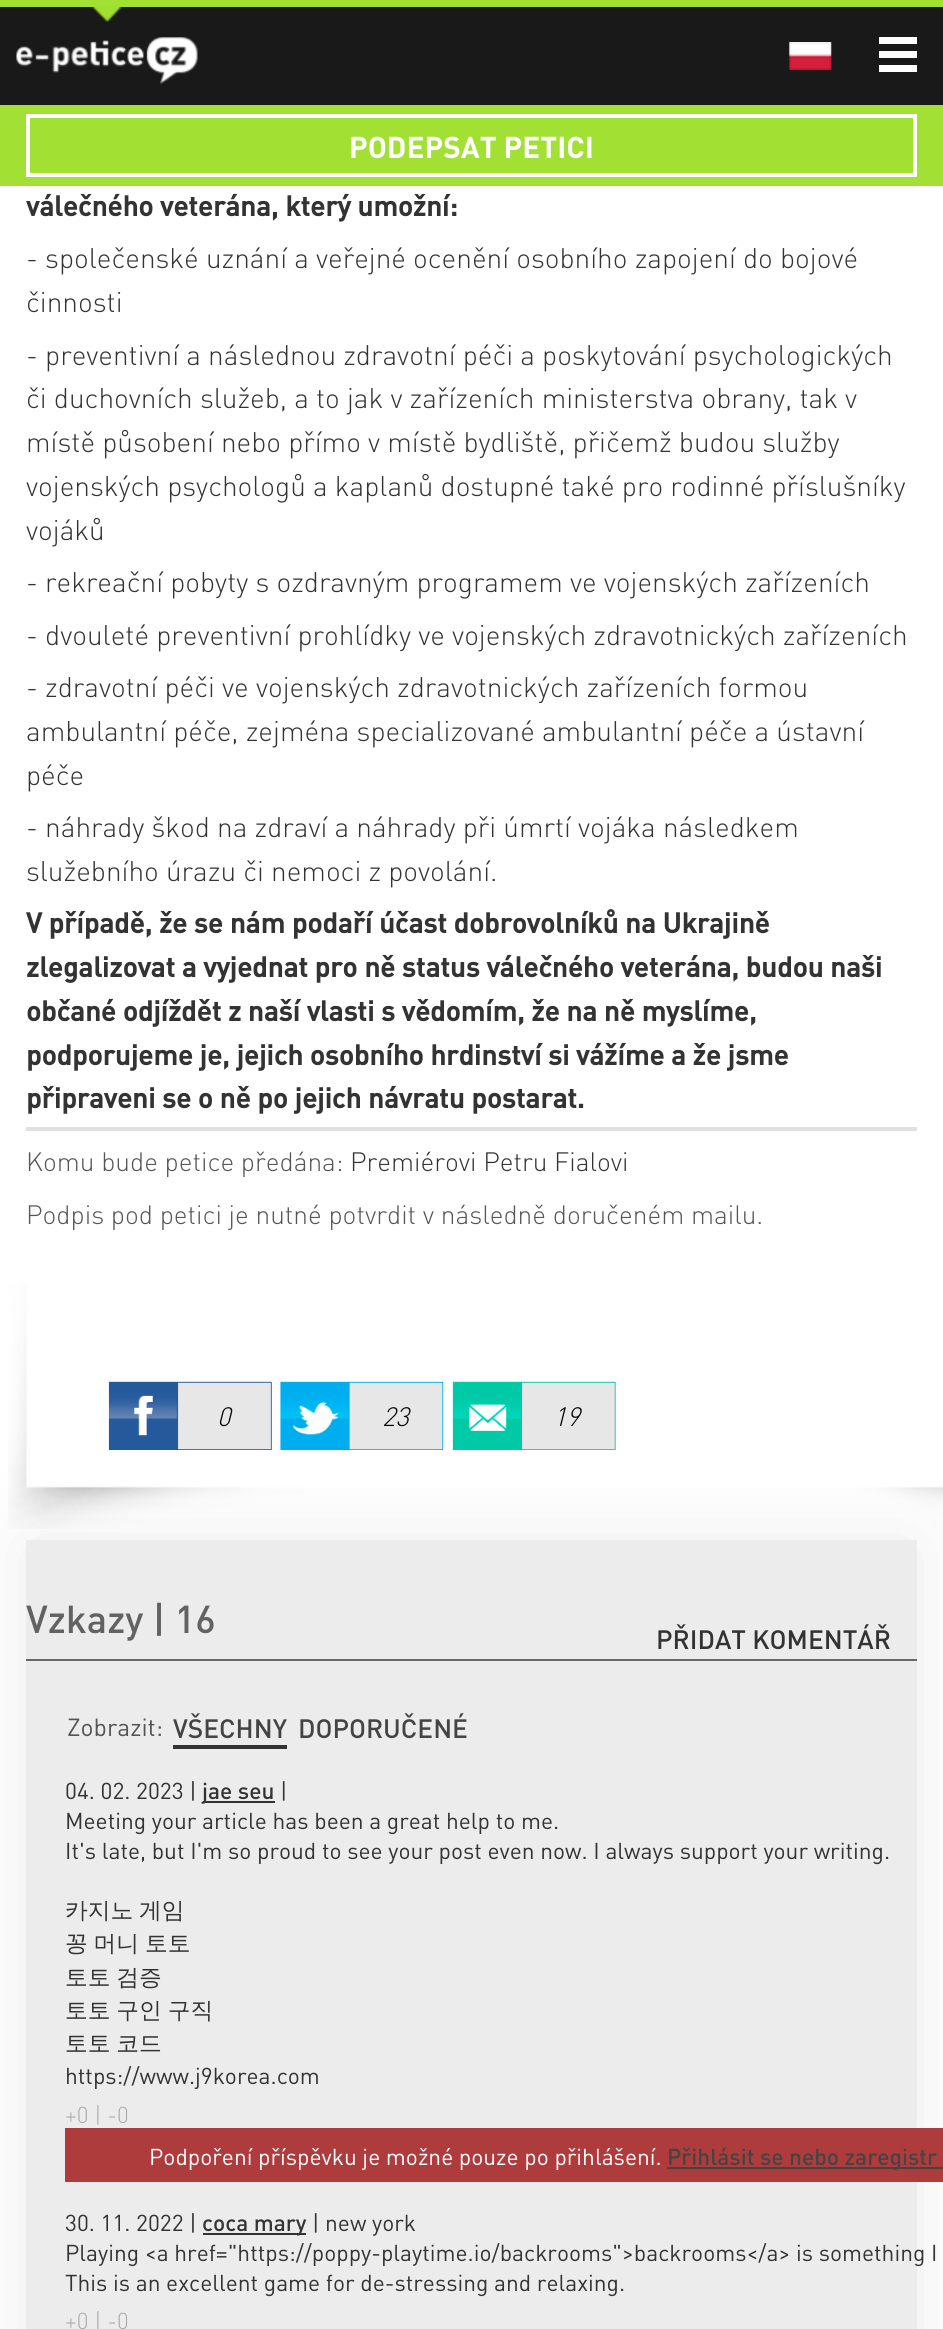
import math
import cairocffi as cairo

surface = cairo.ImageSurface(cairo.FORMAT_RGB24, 943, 2329)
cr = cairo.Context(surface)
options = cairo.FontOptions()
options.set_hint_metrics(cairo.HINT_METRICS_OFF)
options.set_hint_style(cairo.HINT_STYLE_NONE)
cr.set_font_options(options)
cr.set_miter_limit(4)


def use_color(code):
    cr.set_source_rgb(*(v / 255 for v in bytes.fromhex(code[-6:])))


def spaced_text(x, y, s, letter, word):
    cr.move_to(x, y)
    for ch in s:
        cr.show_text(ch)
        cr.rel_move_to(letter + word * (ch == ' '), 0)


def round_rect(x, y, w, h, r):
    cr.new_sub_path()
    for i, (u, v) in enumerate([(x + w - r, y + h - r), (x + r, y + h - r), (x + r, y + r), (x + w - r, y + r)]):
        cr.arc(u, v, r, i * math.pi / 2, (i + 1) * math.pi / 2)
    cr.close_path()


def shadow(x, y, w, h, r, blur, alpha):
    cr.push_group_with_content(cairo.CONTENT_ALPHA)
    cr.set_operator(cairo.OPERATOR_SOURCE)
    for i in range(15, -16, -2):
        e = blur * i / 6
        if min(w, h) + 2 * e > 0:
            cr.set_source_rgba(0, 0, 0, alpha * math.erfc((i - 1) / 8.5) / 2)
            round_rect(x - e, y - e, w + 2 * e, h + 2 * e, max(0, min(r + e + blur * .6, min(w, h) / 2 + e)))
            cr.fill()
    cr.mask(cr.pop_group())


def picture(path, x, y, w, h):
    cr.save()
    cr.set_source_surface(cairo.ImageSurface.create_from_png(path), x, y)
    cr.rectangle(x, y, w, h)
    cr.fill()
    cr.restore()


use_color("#ffffff")
cr.paint()
cr.set_source_rgba(0, 0, 0, 0.9)
cr.rectangle(0, 7, 943, 98)
cr.fill()
use_color("#a2e134")
cr.rectangle(0, 0, 943, 7)
cr.fill()
picture("img1.png", 92, 7, 30, 16)
picture("img2.png", 16, 37, 182, 48)
use_color("#000000")
cr.rectangle(789, 42, 42, 28)
cr.fill()
picture("img3.png", 789, 42, 43, 28)
use_color("#ffffff")
cr.rectangle(879, 37, 38, 7)
cr.fill()
cr.rectangle(879, 51, 38, 7)
cr.fill()
cr.rectangle(879, 65, 38, 7)
cr.fill()
use_color("#a2e134")
cr.rectangle(0, 105, 943, 81)
cr.fill()
cr.rectangle(28, 116, 887, 59)
use_color("#ffffff")
cr.set_line_width(4)
cr.stroke()
cr.select_font_face("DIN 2", cairo.FONT_SLANT_NORMAL, cairo.FONT_WEIGHT_BOLD)
cr.set_font_size(29.75)
cr.move_to(349, 158)
cr.show_text("PODEPSAT PETICI")
cr.select_font_face("DIN", cairo.FONT_SLANT_NORMAL, cairo.FONT_WEIGHT_BOLD)
cr.set_font_size(28)
use_color("#333333")
cr.move_to(26, 216)
cr.show_text("válečného veterána, který umožní:")
cr.select_font_face("DIN Light")
cr.move_to(26, 268)
cr.show_text("- společenské uznání a veřejné ocenění osobního zapojení do bojové")
cr.move_to(26, 312)
cr.show_text("činnosti")
cr.move_to(26, 365)
cr.show_text("- preventivní a následnou zdravotní péči a poskytování psychologických")
cr.move_to(26, 408)
cr.show_text("či duchovních služeb, a to jak v zařízeních ministerstva obrany, tak v")
cr.move_to(26, 452)
cr.show_text("místě působení nebo přímo v místě bydliště, přičemž budou služby")
cr.move_to(26, 496)
cr.show_text("vojenských psychologů a kaplanů dostupné také pro rodinné příslušníky")
cr.move_to(26, 540)
cr.show_text("vojáků")
cr.move_to(26, 592)
cr.show_text("- rekreační pobyty s ozdravným programem ve vojenských zařízeních")
cr.move_to(26, 645)
cr.show_text("- dvouleté preventivní prohlídky ve vojenských zdravotnických zařízeních")
cr.move_to(26, 697)
cr.show_text("- zdravotní péči ve vojenských zdravotnických zařízeních formou")
cr.move_to(26, 741)
cr.show_text("ambulantní péče, zejména specializované ambulantní péče a ústavní")
cr.move_to(26, 785)
cr.show_text("péče")
cr.move_to(26, 837)
cr.show_text("- náhrady škod na zdraví a náhrady při úmrtí vojáka následkem")
cr.move_to(26, 881)
cr.show_text("služebního úrazu či nemoci z povolání.")
cr.select_font_face("DIN", cairo.FONT_SLANT_NORMAL, cairo.FONT_WEIGHT_BOLD)
cr.move_to(26, 933)
cr.show_text("V případě, že se nám podaří účast dobrovolníků na Ukrajině")
cr.move_to(26, 977)
cr.show_text("zlegalizovat a vyjednat pro ně status válečného veterána, budou naši")
cr.move_to(26, 1021)
cr.show_text("občané odjíždět z naší vlasti s vědomím, že na ně myslíme,")
cr.move_to(26, 1065)
cr.show_text("podporujeme je, jejich osobního hrdinství si vážíme a že jsme")
cr.move_to(26, 1108)
cr.show_text("připraveni se o ně po jejich návratu postarat.")
use_color("#e0e0e0")
cr.rectangle(26, 1127, 891, 4)
cr.fill()
cr.select_font_face("DIN Light")
cr.set_font_size(26.25)
use_color("#555555")
cr.move_to(26, 1171)
cr.show_text("Komu bude petice předána:")
use_color("#333333")
cr.move_to(350, 1171)
cr.show_text("Premiérovi Petru Fialovi")
use_color("#555555")
cr.move_to(26, 1224)
cr.show_text("Podpis pod petici je nutné potvrdit v následně doručeném mailu.")
use_color("#eeeeee")
shadow(26, 1540, 891, 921, 0, 44, 1)
picture("img4.png", 8, 1282, 935, 247)
picture("img5.png", 108, 1381, 164, 69)
cr.select_font_face("DIN Light", cairo.FONT_SLANT_ITALIC)
use_color("#000000")
cr.move_to(217, 1426)
cr.show_text("0")
picture("img6.png", 280, 1381, 164, 69)
cr.move_to(382, 1426)
cr.show_text("23")
picture("img7.png", 452, 1381, 164, 69)
cr.move_to(553, 1426)
cr.show_text("19")
use_color("#ececec")
cr.rectangle(26, 1540, 891, 789)
cr.fill()
use_color("#686868")
cr.rectangle(26, 1659, 891, 2)
cr.fill()
cr.select_font_face("DIN Medium")
cr.set_font_size(38.5)
use_color("#626262")
cr.move_to(26, 1633)
cr.show_text("Vzkazy | 16")
cr.set_font_size(26.25)
use_color("#333333")
cr.move_to(656, 1649)
cr.show_text("PŘIDAT KOMENTÁŘ")
cr.select_font_face("DIN")
cr.set_font_size(24.5)
use_color("#555555")
cr.move_to(67, 1736)
cr.show_text("Zobrazit:")
cr.select_font_face("DIN Medium")
cr.set_font_size(26.25)
use_color("#444444")
cr.move_to(173, 1738)
cr.show_text("VŠECHNY")
use_color("#333333")
cr.rectangle(173, 1745, 114, 4)
cr.fill()
use_color("#444444")
cr.move_to(298, 1738)
cr.show_text("DOPORUČENÉ")
cr.select_font_face("DIN")
cr.set_font_size(22.75)
use_color("#333333")
cr.move_to(65, 1799)
cr.show_text("04. 02. 2023 |")
cr.rectangle(203, 1801, 72, 2)
cr.fill()
cr.select_font_face("DIN Medium")
cr.move_to(202, 1799)
cr.show_text("jae seu")
cr.select_font_face("DIN")
cr.move_to(280, 1799)
cr.show_text("|")
cr.move_to(65, 1829)
cr.show_text("Meeting your article has been a great help to me.")
cr.move_to(65, 1859)
cr.show_text("It's late, but I'm so proud to see your post even now. I always support your writing.")
cr.select_font_face("WenQuanYi Zen Hei Medium")
spaced_text(65, 1918, "카지노 게임", 0, -1)
spaced_text(65, 1951, "꽁 머니 토토", 0, -1)
spaced_text(65, 1985, "토토 검증", 0, -1)
spaced_text(65, 2018, "토토 구인 구직", 0, -1)
spaced_text(65, 2051, "토토 코드", 0, -1)
cr.select_font_face("DIN")
cr.move_to(65, 2084)
cr.show_text("https://www.j9korea.com")
cr.select_font_face("DIN Light")
use_color("#aaaaaa")
cr.move_to(65, 2123)
cr.show_text("+0 | -0")
use_color("#af3c3c")
cr.rectangle(65, 2128, 878, 54)
cr.fill()
cr.select_font_face("DIN")
use_color("#ffffff")
cr.move_to(149, 2165)
cr.show_text("Podpoření příspěvku je možné pouze po přihlášení.")
use_color("#444444")
cr.rectangle(667, 2167, 276, 2)
cr.fill()
cr.select_font_face("DIN Medium")
cr.move_to(667, 2165)
cr.show_text("Přihlásit se nebo zaregistr")
cr.select_font_face("DIN")
use_color("#333333")
cr.move_to(65, 2231)
cr.show_text("30. 11. 2022 |")
cr.rectangle(203, 2233, 103, 2)
cr.fill()
cr.select_font_face("DIN Medium")
cr.move_to(202, 2231)
cr.show_text("coca mary")
cr.select_font_face("DIN")
cr.move_to(312, 2231)
cr.show_text("| new york")
cr.move_to(65, 2261)
cr.show_text("Playing <a href=\"https://poppy-playtime.io/backrooms\">backrooms</a> is something I")
cr.move_to(65, 2291)
cr.show_text("This is an excellent game for de-stressing and relaxing.")
cr.select_font_face("DIN Light")
use_color("#aaaaaa")
cr.move_to(65, 2329)
cr.show_text("+0 | -0")
surface.write_to_png("result.png")
